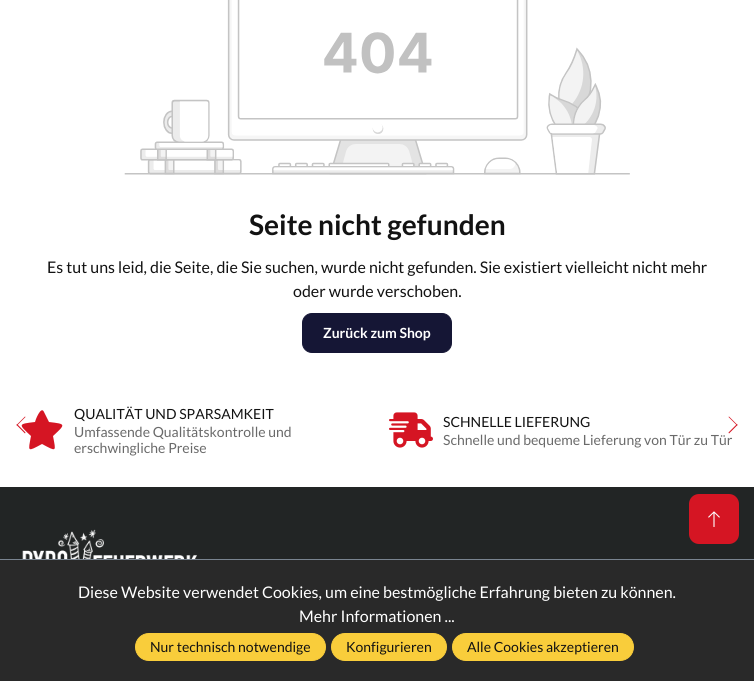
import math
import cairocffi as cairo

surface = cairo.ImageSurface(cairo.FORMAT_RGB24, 754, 681)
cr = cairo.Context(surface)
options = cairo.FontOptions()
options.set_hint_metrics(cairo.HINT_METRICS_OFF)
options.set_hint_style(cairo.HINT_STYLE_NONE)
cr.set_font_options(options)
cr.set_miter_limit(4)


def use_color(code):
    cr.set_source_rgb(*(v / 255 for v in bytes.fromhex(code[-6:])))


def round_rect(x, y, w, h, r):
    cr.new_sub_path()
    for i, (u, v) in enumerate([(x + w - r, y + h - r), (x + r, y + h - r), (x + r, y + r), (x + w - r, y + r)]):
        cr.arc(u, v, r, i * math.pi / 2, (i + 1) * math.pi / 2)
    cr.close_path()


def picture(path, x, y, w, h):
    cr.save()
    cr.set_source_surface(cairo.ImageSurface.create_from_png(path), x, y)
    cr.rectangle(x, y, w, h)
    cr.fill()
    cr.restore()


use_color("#ffffff")
cr.paint()
picture("img1.png", 124, 0, 506, 175)
cr.select_font_face("Lato", cairo.FONT_SLANT_NORMAL, cairo.FONT_WEIGHT_BOLD)
cr.set_font_size(28.1)
use_color("#121212")
cr.move_to(249, 235)
cr.show_text("Seite nicht gefunden")
cr.select_font_face("Lato")
cr.set_font_size(16)
cr.move_to(47, 273)
cr.show_text("Es tut uns leid, die Seite, die Sie suchen, wurde nicht gefunden. Sie existiert vielleicht nicht mehr")
cr.move_to(293, 297)
cr.show_text("oder wurde verschoben.")
use_color("#151635")
round_rect(302.5, 313.5, 149, 39, 9.5)
cr.fill_preserve()
cr.set_line_width(1)
cr.stroke()
cr.select_font_face("Lato", cairo.FONT_SLANT_NORMAL, cairo.FONT_WEIGHT_BOLD)
cr.set_font_size(14)
use_color("#ffffff")
cr.move_to(323, 338)
cr.show_text("Zurück zum Shop")
use_color("#d51523")
cr.new_path()
cr.move_to(44, 412)
cr.curve_to(41, 405, 35, 421, 35, 422)
cr.curve_to(18, 424, 18, 424, 31, 436)
cr.curve_to(28, 452, 27, 452, 42, 444)
cr.curve_to(57, 452, 56, 452, 53, 436)
cr.curve_to(66, 424, 66, 424, 49, 422)
cr.close_path()
cr.fill()
cr.select_font_face("Lato")
use_color("#121212")
cr.move_to(74, 419)
cr.show_text("QUALITÄT UND SPARSAMKEIT")
use_color("#6a6a6a")
cr.move_to(74, 437)
cr.show_text("Umfassende Qualitätskontrolle und")
cr.move_to(74, 453)
cr.show_text("erschwingliche Preise")
picture("img2.png", 389, 412, 44, 36)
use_color("#121212")
cr.move_to(443, 427)
cr.show_text("SCHNELLE LIEFERUNG")
use_color("#6a6a6a")
cr.move_to(443, 445)
cr.show_text("Schnelle und bequeme Lieferung von Tür zu Tür")
use_color("#d51523")
cr.new_path()
cr.move_to(25.5, 432.5)
cr.line_to(25, 433.5)
cr.line_to(16.5, 425)
cr.line_to(17, 424)
cr.close_path()
cr.fill()
cr.new_path()
cr.move_to(25.5, 417)
cr.line_to(17, 425.5)
cr.line_to(16.5, 425)
cr.line_to(25, 416.5)
cr.close_path()
cr.fill()
cr.new_path()
cr.move_to(728.5, 417)
cr.line_to(729, 416.5)
cr.line_to(737.5, 425)
cr.line_to(737, 425.5)
cr.close_path()
cr.fill()
cr.new_path()
cr.move_to(728.5, 432.5)
cr.line_to(737, 424)
cr.line_to(737.5, 425)
cr.line_to(729, 433.5)
cr.close_path()
cr.fill()
use_color("#222525")
cr.rectangle(0, 487, 754, 72)
cr.fill()
picture("img3.png", 22, 529, 175, 30)
use_color("#d51523")
round_rect(689, 494, 50, 50, 10)
cr.fill()
picture("img4.png", 708, 511, 12, 16)
use_color("#292929")
cr.rectangle(0, 560, 754, 121)
cr.fill()
use_color("#798490")
cr.rectangle(0, 559, 754, 1)
cr.fill()
cr.set_font_size(16)
use_color("#ffffff")
cr.move_to(78, 598)
cr.show_text("Diese Website verwendet Cookies, um eine bestmögliche Erfahrung bieten zu können.")
cr.move_to(299, 622)
cr.show_text("Mehr Informationen ...")
use_color("#f9cd3b")
round_rect(135.5, 633.5, 190, 27, 13.5)
cr.fill_preserve()
cr.stroke()
cr.set_font_size(14)
use_color("#121212")
cr.move_to(150, 652)
cr.show_text("Nur technisch notwendige")
use_color("#f9cd3b")
round_rect(331.5, 633.5, 115, 27, 13.5)
cr.fill_preserve()
cr.stroke()
use_color("#121212")
cr.move_to(346, 652)
cr.show_text("Konfigurieren")
use_color("#f9cd3b")
round_rect(452.5, 633.5, 181, 27, 13.5)
cr.fill_preserve()
cr.stroke()
use_color("#121212")
cr.move_to(467, 652)
cr.show_text("Alle Cookies akzeptieren")
surface.write_to_png("result.png")
